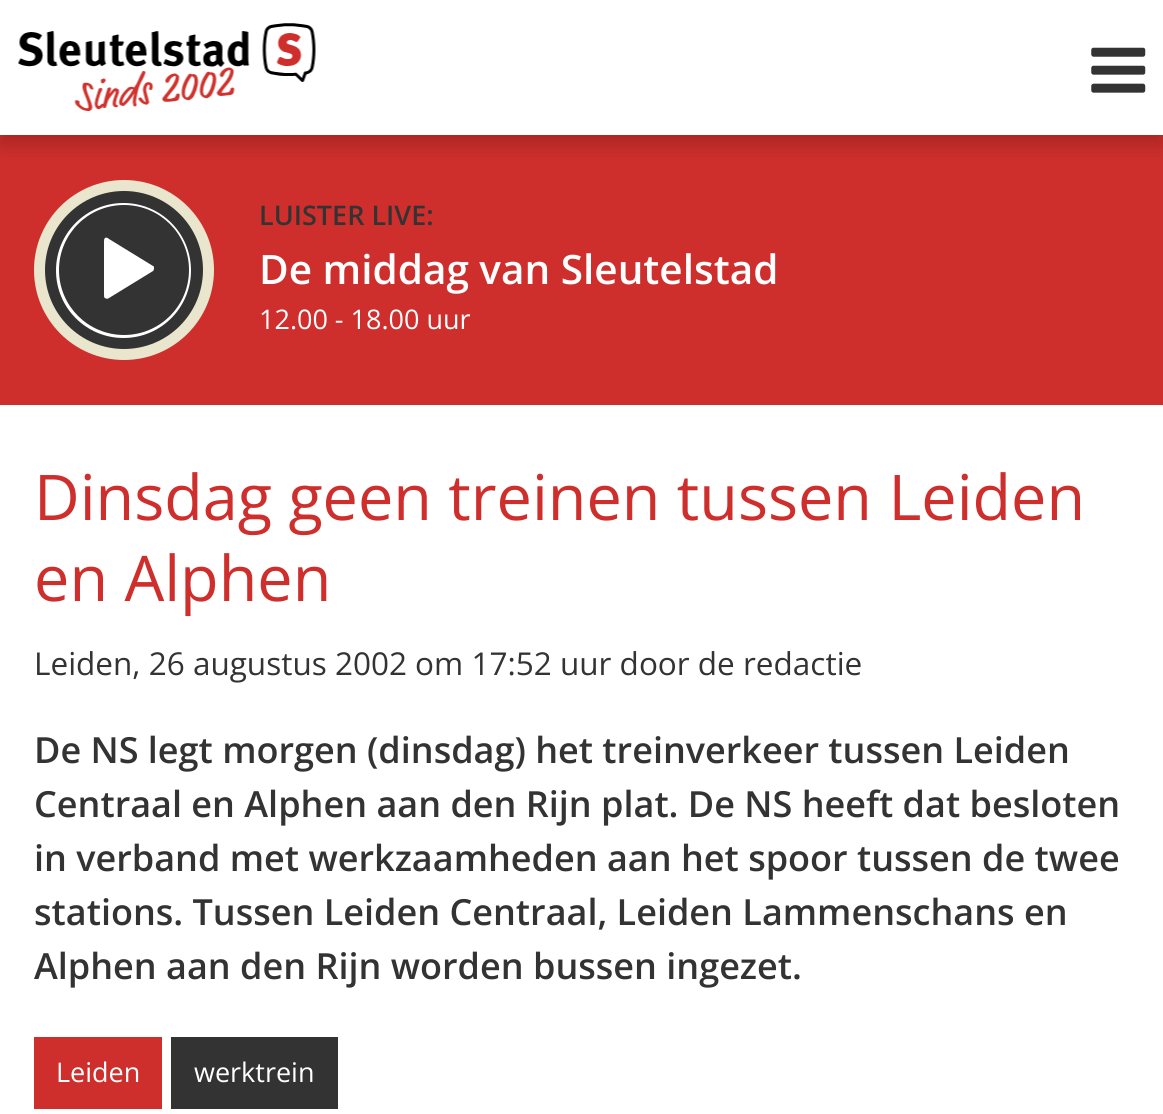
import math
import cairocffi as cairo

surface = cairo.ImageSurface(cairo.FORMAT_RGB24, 1163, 1114)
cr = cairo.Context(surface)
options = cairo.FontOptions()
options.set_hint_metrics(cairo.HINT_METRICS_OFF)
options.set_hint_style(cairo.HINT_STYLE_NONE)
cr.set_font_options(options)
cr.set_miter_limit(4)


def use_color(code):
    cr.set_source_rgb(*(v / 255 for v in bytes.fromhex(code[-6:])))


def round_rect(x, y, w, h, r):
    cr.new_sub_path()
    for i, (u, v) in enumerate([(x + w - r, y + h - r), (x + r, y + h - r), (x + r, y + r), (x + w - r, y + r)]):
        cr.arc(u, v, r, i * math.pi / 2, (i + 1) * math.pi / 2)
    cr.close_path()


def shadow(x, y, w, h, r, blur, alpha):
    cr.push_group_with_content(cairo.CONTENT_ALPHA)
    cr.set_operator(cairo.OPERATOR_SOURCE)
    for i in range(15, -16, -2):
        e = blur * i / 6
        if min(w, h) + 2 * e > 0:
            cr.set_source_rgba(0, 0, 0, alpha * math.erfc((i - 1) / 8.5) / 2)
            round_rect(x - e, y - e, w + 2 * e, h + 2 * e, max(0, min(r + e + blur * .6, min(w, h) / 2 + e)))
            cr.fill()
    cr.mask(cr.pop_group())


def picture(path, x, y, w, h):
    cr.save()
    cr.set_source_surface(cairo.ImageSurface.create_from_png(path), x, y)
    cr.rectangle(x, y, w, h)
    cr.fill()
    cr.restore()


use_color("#ffffff")
cr.paint()
use_color("#cf2f2c")
cr.rectangle(0, 135, 1163, 270)
cr.fill()
cr.save()
cr.rectangle(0, 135, 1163, 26)
cr.clip()
use_color("#430b0a")
shadow(0, 9, 1163, 135, 0, 11, 0.3)
cr.restore()
picture("img1.png", 18, 23, 298, 88)
picture("img2.png", 1091, 47, 55, 46)
use_color("#eae6ce")
cr.arc(124, 270, 90, 0, 2 * math.pi)
cr.fill()
use_color("#333333")
cr.arc(124, 270, 79, 0, 2 * math.pi)
cr.fill()
use_color("#ffffff")
cr.arc(123.5, 270.5, 67.5, 0, 2 * math.pi)
cr.fill()
use_color("#333333")
cr.arc(124, 270, 65, 0, 2 * math.pi)
cr.fill()
use_color("#ffffff")
cr.new_path()
cr.move_to(153, 266)
cr.curve_to(154, 266, 154, 267, 154, 268)
cr.curve_to(154, 269, 154, 270, 153, 271)
cr.line_to(109, 298)
cr.curve_to(108, 299, 106, 299, 105, 298)
cr.curve_to(104, 298, 104, 296, 104, 294)
cr.line_to(104, 242)
cr.curve_to(104, 240, 104, 239, 105, 238)
cr.curve_to(106, 237, 108, 238, 109, 239)
cr.close_path()
cr.fill()
cr.select_font_face("Open Sans SemiBold")
cr.set_font_size(27)
use_color("#333333")
cr.move_to(259, 225)
cr.show_text("LUISTER LIVE:")
cr.set_font_size(40.5)
use_color("#ffffff")
cr.move_to(259, 284)
cr.show_text("De middag van Sleutelstad")
cr.select_font_face("Open Sans")
cr.set_font_size(27)
cr.move_to(259, 329)
cr.show_text("12.00 - 18.00 uur")
cr.set_font_size(63)
use_color("#cf2f2c")
cr.move_to(34, 520)
cr.show_text("Dinsdag geen treinen tussen Leiden")
cr.move_to(34, 601)
cr.show_text("en Alphen")
cr.set_font_size(31.5)
use_color("#333333")
cr.move_to(34, 675)
cr.show_text("Leiden, 26 augustus 2002 om 17:52 uur door de redactie")
cr.select_font_face("Open Sans SemiBold")
cr.set_font_size(36)
cr.move_to(34, 763)
cr.show_text("De NS legt morgen (dinsdag) het treinverkeer tussen Leiden")
cr.move_to(34, 817)
cr.show_text("Centraal en Alphen aan den Rijn plat. De NS heeft dat besloten")
cr.move_to(34, 871)
cr.show_text("in verband met werkzaamheden aan het spoor tussen de twee")
cr.move_to(34, 925)
cr.show_text("stations. Tussen Leiden Centraal, Leiden Lammenschans en")
cr.move_to(34, 979)
cr.show_text("Alphen aan den Rijn worden bussen ingezet.")
use_color("#cf2f2c")
cr.rectangle(34, 1037, 128, 72)
cr.fill()
cr.select_font_face("Open Sans")
cr.set_font_size(27)
use_color("#ffffff")
cr.move_to(56, 1082)
cr.show_text("Leiden")
use_color("#333333")
cr.rectangle(171, 1037, 167, 72)
cr.fill()
use_color("#ffffff")
cr.move_to(194, 1082)
cr.show_text("werktrein")
surface.write_to_png("result.png")
